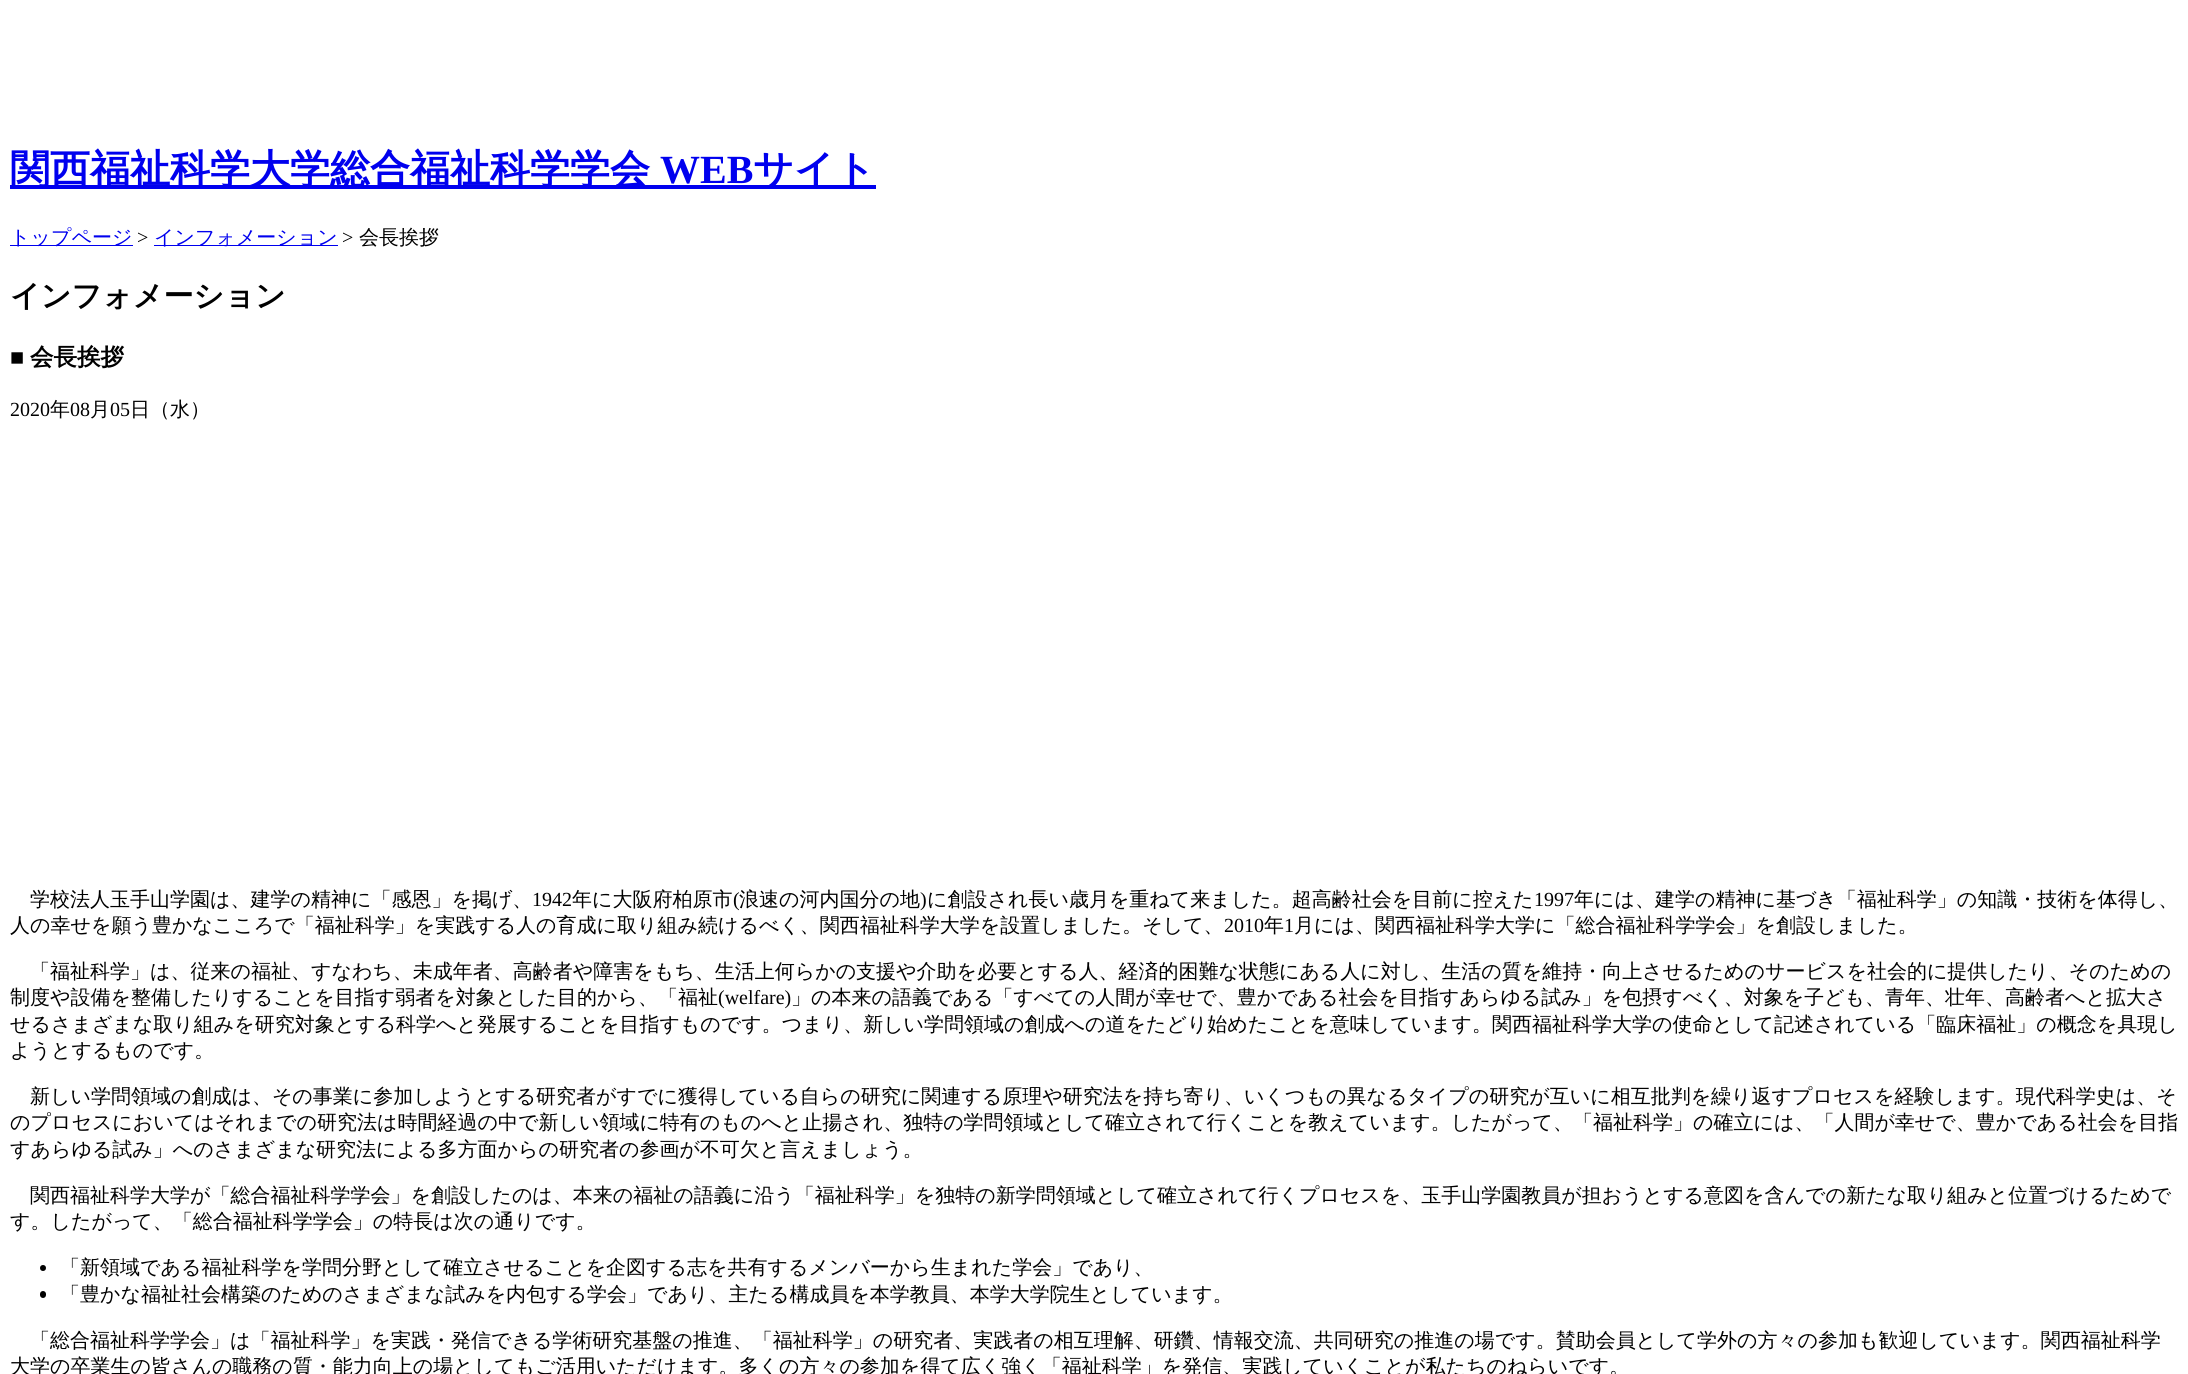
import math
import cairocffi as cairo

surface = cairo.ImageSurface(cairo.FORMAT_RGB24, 2188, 1374)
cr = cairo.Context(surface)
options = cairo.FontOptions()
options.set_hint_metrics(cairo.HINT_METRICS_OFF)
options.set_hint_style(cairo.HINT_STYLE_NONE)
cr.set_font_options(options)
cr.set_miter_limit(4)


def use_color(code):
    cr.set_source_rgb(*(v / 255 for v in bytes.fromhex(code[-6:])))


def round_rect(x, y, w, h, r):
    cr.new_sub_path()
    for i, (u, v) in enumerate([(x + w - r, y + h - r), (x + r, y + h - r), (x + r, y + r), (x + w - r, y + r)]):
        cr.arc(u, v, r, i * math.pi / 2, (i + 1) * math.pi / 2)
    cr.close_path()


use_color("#ffffff")
cr.paint()
use_color("#0000ee")
cr.rectangle(10, 185, 866, 4)
cr.fill()
cr.select_font_face("WenQuanYi Zen Hei", cairo.FONT_SLANT_NORMAL, cairo.FONT_WEIGHT_BOLD)
cr.set_font_size(40)
cr.move_to(10, 183)
cr.show_text("関西福祉科学大学総合福祉科学学会")
cr.select_font_face("Liberation Serif", cairo.FONT_SLANT_NORMAL, cairo.FONT_WEIGHT_BOLD)
cr.move_to(660, 183)
cr.show_text("WEB")
cr.select_font_face("WenQuanYi Zen Hei", cairo.FONT_SLANT_NORMAL, cairo.FONT_WEIGHT_BOLD)
cr.move_to(753, 183)
cr.show_text("サイト")
cr.rectangle(10, 245, 123, 1)
cr.fill()
cr.select_font_face("WenQuanYi Zen Hei Medium")
cr.set_font_size(20)
cr.move_to(10, 244)
cr.show_text("トップページ")
cr.select_font_face("Liberation Serif")
use_color("#000000")
cr.move_to(137, 244)
cr.show_text(">")
use_color("#0000ee")
cr.rectangle(154, 245, 184, 1)
cr.fill()
cr.select_font_face("WenQuanYi Zen Hei Medium")
cr.move_to(154, 244)
cr.show_text("インフォメーション")
cr.select_font_face("Liberation Serif")
use_color("#000000")
cr.move_to(342, 244)
cr.show_text(">")
cr.select_font_face("WenQuanYi Zen Hei Medium")
cr.move_to(359, 244)
cr.show_text("会長挨拶")
cr.select_font_face("WenQuanYi Zen Hei", cairo.FONT_SLANT_NORMAL, cairo.FONT_WEIGHT_BOLD)
cr.set_font_size(30)
cr.move_to(10, 306)
cr.show_text("インフォメーション")
cr.select_font_face("Liberation Serif", cairo.FONT_SLANT_NORMAL, cairo.FONT_WEIGHT_BOLD)
cr.set_font_size(23.5)
cr.move_to(10, 365)
cr.show_text("■")
cr.select_font_face("WenQuanYi Zen Hei", cairo.FONT_SLANT_NORMAL, cairo.FONT_WEIGHT_BOLD)
cr.move_to(30, 365)
cr.show_text("会長挨拶")
cr.select_font_face("Liberation Serif")
cr.set_font_size(20)
cr.move_to(10, 416)
cr.show_text("2020")
cr.select_font_face("WenQuanYi Zen Hei Medium")
cr.move_to(50, 416)
cr.show_text("年")
cr.select_font_face("Liberation Serif")
cr.move_to(70, 416)
cr.show_text("08")
cr.select_font_face("WenQuanYi Zen Hei Medium")
cr.move_to(90, 416)
cr.show_text("月")
cr.select_font_face("Liberation Serif")
cr.move_to(110, 416)
cr.show_text("05")
cr.select_font_face("WenQuanYi Zen Hei Medium")
cr.move_to(130, 416)
cr.show_text("日（水）")
cr.move_to(30, 906)
cr.show_text("学校法人玉手山学園は、建学の精神に「感恩」を掲げ、")
cr.select_font_face("Liberation Serif")
cr.move_to(532, 906)
cr.show_text("1942")
cr.select_font_face("WenQuanYi Zen Hei Medium")
cr.move_to(572, 906)
cr.show_text("年に大阪府柏原市")
cr.select_font_face("Liberation Serif")
cr.move_to(733, 906)
cr.show_text("(")
cr.select_font_face("WenQuanYi Zen Hei Medium")
cr.move_to(739, 906)
cr.show_text("浪速の河内国分の地")
cr.select_font_face("Liberation Serif")
cr.move_to(920, 906)
cr.show_text(")")
cr.select_font_face("WenQuanYi Zen Hei Medium")
cr.move_to(927, 906)
cr.show_text("に創設され長い歳月を重ねて来ました。超高齢社会を目前に控えた")
cr.select_font_face("Liberation Serif")
cr.move_to(1534, 906)
cr.show_text("1997")
cr.select_font_face("WenQuanYi Zen Hei Medium")
cr.move_to(1574, 906)
cr.show_text("年には、建学の精神に基づき「福祉科学」の知識・技術を体得し、")
cr.move_to(10, 932)
cr.show_text("人の幸せを願う豊かなこころで「福祉科学」を実践する人の育成に取り組み続けるべく、関西福祉科学大学を設置しました。そして、")
cr.select_font_face("Liberation Serif")
cr.move_to(1224, 932)
cr.show_text("2010")
cr.select_font_face("WenQuanYi Zen Hei Medium")
cr.move_to(1264, 932)
cr.show_text("年")
cr.select_font_face("Liberation Serif")
cr.move_to(1284, 932)
cr.show_text("1")
cr.select_font_face("WenQuanYi Zen Hei Medium")
cr.move_to(1294, 932)
cr.show_text("月には、関西福祉科学大学に「総合福祉科学学会」を創設しました。")
cr.move_to(30, 978)
cr.show_text("「福祉科学」は、従来の福祉、すなわち、未成年者、高齢者や障害をもち、生活上何らかの支援や介助を必要とする人、経済的困難な状態にある人に対し、生活の質を維持・向上させるためのサービスを社会的に提供したり、そのための")
cr.move_to(10, 1004)
cr.show_text("制度や設備を整備したりすることを目指す弱者を対象とした目的から、「福祉")
cr.select_font_face("Liberation Serif")
cr.move_to(718, 1004)
cr.show_text("(welfare)")
cr.select_font_face("WenQuanYi Zen Hei Medium")
cr.move_to(791, 1004)
cr.show_text("」の本来の語義である「すべての人間が幸せで、豊かである社会を目指すあらゆる試み」を包摂すべく、対象を子ども、青年、壮年、高齢者へと拡大さ")
cr.move_to(10, 1031)
cr.show_text("せるさまざまな取り組みを研究対象とする科学へと発展することを目指すものです。つまり、新しい学問領域の創成への道をたどり始めたことを意味しています。関西福祉科学大学の使命として記述されている「臨床福祉」の概念を具現し")
cr.move_to(10, 1057)
cr.show_text("ようとするものです。")
cr.move_to(30, 1103)
cr.show_text("新しい学問領域の創成は、その事業に参加しようとする研究者がすでに獲得している自らの研究に関連する原理や研究法を持ち寄り、いくつもの異なるタイプの研究が互いに相互批判を繰り返すプロセスを経験します。現代科学史は、そ")
cr.move_to(10, 1129)
cr.show_text("のプロセスにおいてはそれまでの研究法は時間経過の中で新しい領域に特有のものへと止揚され、独特の学問領域として確立されて行くことを教えています。したがって、「福祉科学」の確立には、「人間が幸せで、豊かである社会を目指")
cr.move_to(10, 1156)
cr.show_text("すあらゆる試み」へのさまざまな研究法による多方面からの研究者の参画が不可欠と言えましょう。")
cr.move_to(30, 1202)
cr.show_text("関西福祉科学大学が「総合福祉科学学会」を創設したのは、本来の福祉の語義に沿う「福祉科学」を独特の新学問領域として確立されて行くプロセスを、玉手山学園教員が担おうとする意図を含んでの新たな取り組みと位置づけるためで")
cr.move_to(10, 1228)
cr.show_text("す。したがって、「総合福祉科学学会」の特長は次の通りです。")
cr.new_path()
cr.arc(43, 1268, 3, 0, 2 * math.pi)
cr.fill()
cr.move_to(60, 1274)
cr.show_text("「新領域である福祉科学を学問分野として確立させることを企図する志を共有するメンバーから生まれた学会」であり、")
round_rect(40, 1291, 6, 7, 3)
cr.fill()
cr.move_to(60, 1301)
cr.show_text("「豊かな福祉社会構築のためのさまざまな試みを内包する学会」であり、主たる構成員を本学教員、本学大学院生としています。")
cr.move_to(30, 1347)
cr.show_text("「総合福祉科学学会」は「福祉科学」を実践・発信できる学術研究基盤の推進、「福祉科学」の研究者、実践者の相互理解、研鑽、情報交流、共同研究の推進の場です。賛助会員として学外の方々の参加も歓迎しています。関西福祉科学")
cr.move_to(10, 1373)
cr.show_text("大学の卒業生の皆さんの職務の質・能力向上の場としてもご活用いただけます。多くの方々の参加を得て広く強く「福祉科学」を発信、実践していくことが私たちのねらいです。")
surface.write_to_png("result.png")
